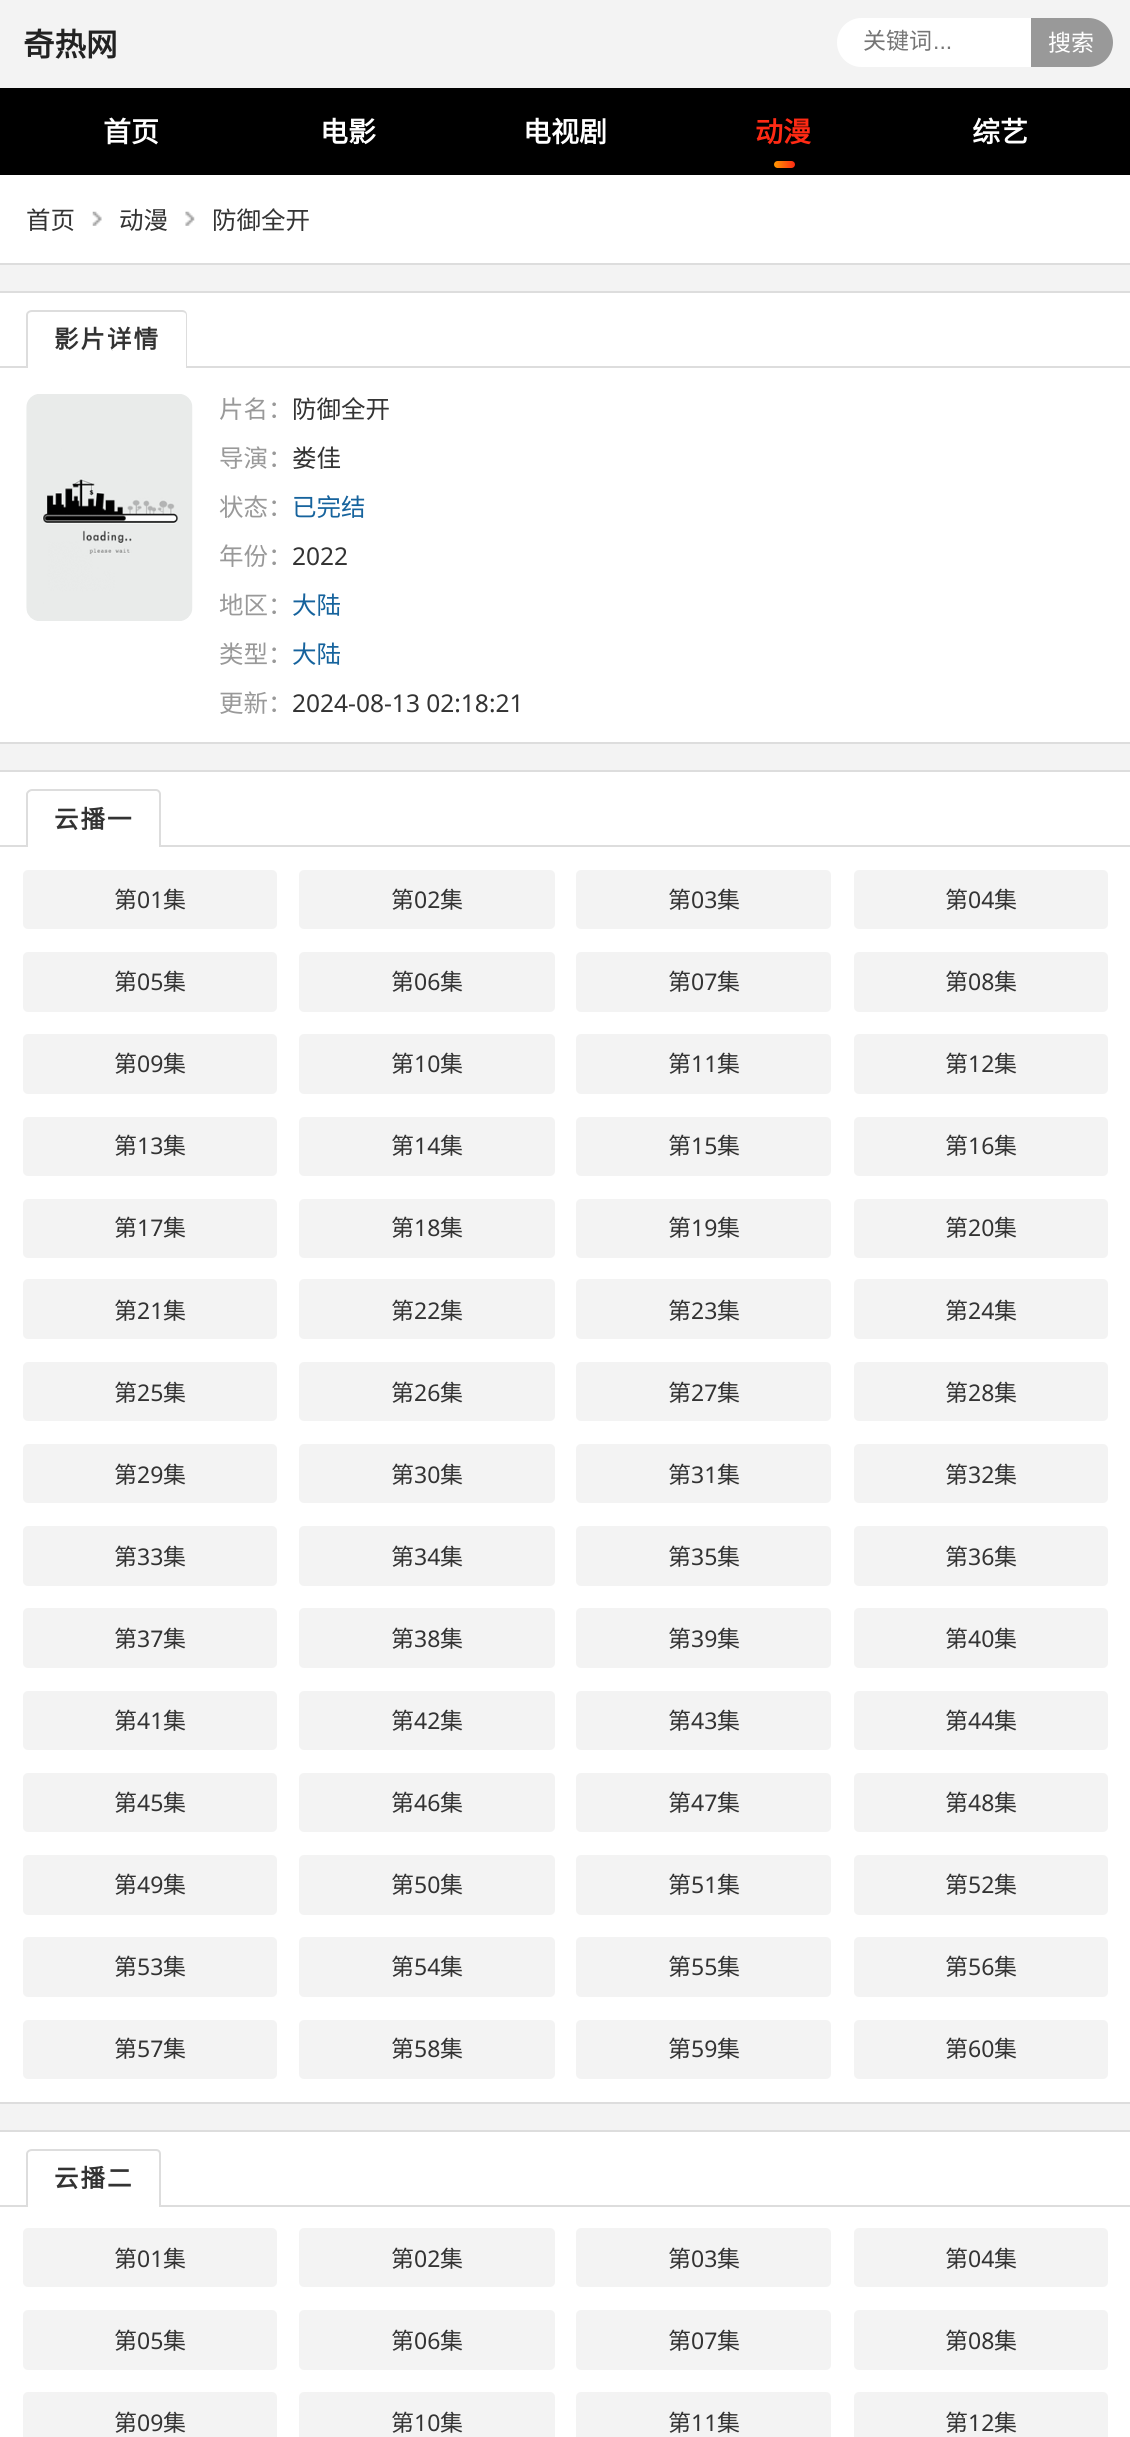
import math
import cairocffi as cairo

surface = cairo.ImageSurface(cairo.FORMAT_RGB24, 1130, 2437)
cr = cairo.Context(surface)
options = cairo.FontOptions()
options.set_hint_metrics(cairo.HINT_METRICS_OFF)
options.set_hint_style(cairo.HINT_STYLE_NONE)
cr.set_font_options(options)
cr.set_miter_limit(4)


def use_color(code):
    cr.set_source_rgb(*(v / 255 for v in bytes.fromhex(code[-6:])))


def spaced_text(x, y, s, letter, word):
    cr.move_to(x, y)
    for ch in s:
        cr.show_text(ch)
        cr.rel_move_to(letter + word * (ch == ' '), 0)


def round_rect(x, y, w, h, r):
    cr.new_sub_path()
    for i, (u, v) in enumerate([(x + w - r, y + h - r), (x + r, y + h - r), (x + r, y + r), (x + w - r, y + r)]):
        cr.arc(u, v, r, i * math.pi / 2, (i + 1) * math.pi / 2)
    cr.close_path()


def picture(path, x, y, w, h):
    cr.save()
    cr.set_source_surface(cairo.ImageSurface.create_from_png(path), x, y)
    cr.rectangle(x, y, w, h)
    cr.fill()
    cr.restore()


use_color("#f3f3f3")
cr.paint()
cr.select_font_face("Noto Sans CJK SC", cairo.FONT_SLANT_NORMAL, cairo.FONT_WEIGHT_BOLD)
cr.set_font_size(31.5)
use_color("#222222")
cr.move_to(23, 56)
cr.show_text("奇热网")
use_color("#ffffff")
cr.new_path()
cr.move_to(861.5, 18)
cr.line_to(1031, 18)
cr.line_to(1031, 67)
cr.line_to(861.5, 67)
cr.curve_to(848, 67, 837, 56, 837, 42.5)
cr.curve_to(837, 29, 848, 18, 861.5, 18)
cr.close_path()
cr.fill()
cr.select_font_face("Noto Sans CJK SC")
cr.set_font_size(23)
use_color("#757575")
cr.move_to(863, 49)
cr.show_text("关键词")
cr.select_font_face("Liberation Sans")
cr.move_to(933, 49)
cr.show_text("...")
use_color("#999999")
cr.new_path()
cr.move_to(1031, 18)
cr.line_to(1088.5, 18)
cr.curve_to(1102, 18, 1113, 29, 1113, 42.5)
cr.curve_to(1113, 56, 1102, 67, 1088.5, 67)
cr.line_to(1031, 67)
cr.close_path()
cr.fill()
cr.select_font_face("Noto Sans CJK SC")
use_color("#ffffff")
cr.move_to(1048, 51)
cr.show_text("搜索")
use_color("#000000")
cr.rectangle(0, 88, 1130, 87)
cr.fill()
cr.select_font_face("Noto Sans CJK SC", cairo.FONT_SLANT_NORMAL, cairo.FONT_WEIGHT_BOLD)
cr.set_font_size(28)
use_color("#ffffff")
cr.move_to(103, 142)
cr.show_text("首页")
cr.move_to(320, 142)
cr.show_text("电影")
cr.move_to(523, 142)
cr.show_text("电视剧")
use_color("#ff2a14")
cr.move_to(755, 142)
cr.show_text("动漫")
gradient = cairo.LinearGradient(774, 165, 795, 165)
gradient.add_color_stop_rgba(0, 1, 0.596, 0, 1)
gradient.add_color_stop_rgba(1, 1, 0.165, 0.078, 1)
cr.set_source(gradient)
round_rect(774, 161, 21, 7, 3.5)
cr.fill()
use_color("#ffffff")
cr.move_to(972, 142)
cr.show_text("综艺")
cr.rectangle(0, 175, 1130, 88)
cr.fill()
use_color("#dddddd")
cr.rectangle(0, 263, 1130, 2)
cr.fill()
cr.select_font_face("Noto Sans CJK SC")
cr.set_font_size(24.5)
use_color("#333333")
cr.move_to(26, 229)
cr.show_text("首页")
picture("img1.png", 92, 211, 10, 15)
cr.move_to(119, 229)
cr.show_text("动漫")
picture("img2.png", 185, 211, 10, 15)
cr.move_to(212, 229)
cr.show_text("防御全开")
use_color("#ffffff")
cr.rectangle(0, 293, 1130, 449)
cr.fill()
use_color("#dddddd")
cr.rectangle(0, 291, 1130, 2)
cr.fill()
cr.rectangle(0, 742, 1130, 2)
cr.fill()
cr.rectangle(0, 366, 1130, 2)
cr.fill()
use_color("#ffffff")
cr.new_path()
cr.move_to(31, 310)
cr.line_to(182, 310)
cr.curve_to(185, 310, 187, 312, 187, 315)
cr.line_to(187, 368)
cr.line_to(26, 368)
cr.line_to(26, 315)
cr.curve_to(26, 312, 28, 310, 31, 310)
cr.close_path()
cr.fill()
use_color("#dddddd")
cr.set_fill_rule(cairo.FILL_RULE_EVEN_ODD)
cr.new_path()
cr.move_to(32, 310)
cr.line_to(182, 310)
cr.curve_to(185, 310, 187, 312, 187, 315)
cr.line_to(187, 368)
cr.line_to(26, 368)
cr.line_to(26, 315)
cr.curve_to(26, 312, 29, 310, 32, 310)
cr.close_path()
cr.move_to(32, 312)
cr.line_to(182, 312)
cr.curve_to(184, 312, 186, 313, 186, 315)
cr.line_to(186, 368)
cr.line_to(28, 368)
cr.line_to(28, 315)
cr.curve_to(28, 313, 30, 312, 32, 312)
cr.close_path()
cr.fill()
cr.select_font_face("Noto Sans CJK SC", cairo.FONT_SLANT_NORMAL, cairo.FONT_WEIGHT_BOLD)
use_color("#333333")
spaced_text(54, 348, "影片详情", 2, 0)
picture("img3.png", 26, 394, 167, 227)
cr.select_font_face("Noto Sans CJK SC")
use_color("#999999")
cr.move_to(219, 418)
cr.show_text("片名：")
use_color("#333333")
cr.move_to(292, 418)
cr.show_text("防御全开")
use_color("#999999")
cr.move_to(219, 467)
cr.show_text("导演：")
use_color("#333333")
cr.move_to(292, 467)
cr.show_text("娄佳")
use_color("#999999")
cr.move_to(219, 516)
cr.show_text("状态：")
use_color("#16639d")
cr.move_to(292, 516)
cr.show_text("已完结")
use_color("#999999")
cr.move_to(219, 565)
cr.show_text("年份：")
cr.select_font_face("Noto Sans")
use_color("#333333")
cr.move_to(292, 565)
cr.show_text("2022")
cr.select_font_face("Noto Sans CJK SC")
use_color("#999999")
cr.move_to(219, 614)
cr.show_text("地区：")
use_color("#16639d")
cr.move_to(292, 614)
cr.show_text("大陆")
use_color("#999999")
cr.move_to(219, 663)
cr.show_text("类型：")
use_color("#16639d")
cr.move_to(292, 663)
cr.show_text("大陆")
use_color("#999999")
cr.move_to(219, 712)
cr.show_text("更新：")
cr.select_font_face("Noto Sans")
use_color("#333333")
cr.move_to(292, 712)
cr.show_text("2024-08-13 02:18:21")
use_color("#ffffff")
cr.rectangle(0, 772, 1130, 1330)
cr.fill()
use_color("#dddddd")
cr.rectangle(0, 770, 1130, 2)
cr.fill()
cr.rectangle(0, 2102, 1130, 2)
cr.fill()
cr.rectangle(0, 845, 1130, 2)
cr.fill()
use_color("#ffffff")
cr.new_path()
cr.move_to(31, 789)
cr.line_to(156, 789)
cr.curve_to(159, 789, 161, 791, 161, 794)
cr.line_to(161, 847)
cr.line_to(26, 847)
cr.line_to(26, 794)
cr.curve_to(26, 791, 28, 789, 31, 789)
cr.close_path()
cr.fill()
use_color("#dddddd")
cr.new_path()
cr.move_to(32, 789)
cr.line_to(156, 789)
cr.curve_to(159, 789, 161, 792, 161, 794)
cr.line_to(161, 847)
cr.line_to(26, 847)
cr.line_to(26, 794)
cr.curve_to(26, 792, 29, 789, 32, 789)
cr.close_path()
cr.move_to(32, 791)
cr.line_to(156, 791)
cr.curve_to(158, 791, 159, 793, 159, 794)
cr.line_to(159, 847)
cr.line_to(28, 847)
cr.line_to(28, 794)
cr.curve_to(28, 793, 30, 791, 32, 791)
cr.close_path()
cr.fill()
cr.select_font_face("Noto Sans CJK SC", cairo.FONT_SLANT_NORMAL, cairo.FONT_WEIGHT_BOLD)
use_color("#333333")
spaced_text(54, 828, "云播一", 2, 0)
use_color("#f3f3f3")
round_rect(23, 870, 254, 59, 5)
cr.fill()
cr.select_font_face("Noto Sans CJK SC")
cr.set_font_size(23)
use_color("#333333")
cr.move_to(114, 908)
cr.show_text("第")
cr.select_font_face("Noto Sans")
cr.move_to(137, 908)
cr.show_text("01")
cr.select_font_face("Noto Sans CJK SC")
cr.move_to(163, 908)
cr.show_text("集")
use_color("#f3f3f3")
round_rect(299, 870, 256, 59, 5)
cr.fill()
use_color("#333333")
cr.move_to(391, 908)
cr.show_text("第")
cr.select_font_face("Noto Sans")
cr.move_to(414, 908)
cr.show_text("02")
cr.select_font_face("Noto Sans CJK SC")
cr.move_to(440, 908)
cr.show_text("集")
use_color("#f3f3f3")
round_rect(576, 870, 255, 59, 5)
cr.fill()
use_color("#333333")
cr.move_to(668, 908)
cr.show_text("第")
cr.select_font_face("Noto Sans")
cr.move_to(691, 908)
cr.show_text("03")
cr.select_font_face("Noto Sans CJK SC")
cr.move_to(717, 908)
cr.show_text("集")
use_color("#f3f3f3")
round_rect(854, 870, 254, 59, 5)
cr.fill()
use_color("#333333")
cr.move_to(945, 908)
cr.show_text("第")
cr.select_font_face("Noto Sans")
cr.move_to(968, 908)
cr.show_text("04")
cr.select_font_face("Noto Sans CJK SC")
cr.move_to(994, 908)
cr.show_text("集")
use_color("#f3f3f3")
round_rect(23, 952, 254, 60, 5)
cr.fill()
use_color("#333333")
cr.move_to(114, 990)
cr.show_text("第")
cr.select_font_face("Noto Sans")
cr.move_to(137, 990)
cr.show_text("05")
cr.select_font_face("Noto Sans CJK SC")
cr.move_to(163, 990)
cr.show_text("集")
use_color("#f3f3f3")
round_rect(299, 952, 256, 60, 5)
cr.fill()
use_color("#333333")
cr.move_to(391, 990)
cr.show_text("第")
cr.select_font_face("Noto Sans")
cr.move_to(414, 990)
cr.show_text("06")
cr.select_font_face("Noto Sans CJK SC")
cr.move_to(440, 990)
cr.show_text("集")
use_color("#f3f3f3")
round_rect(576, 952, 255, 60, 5)
cr.fill()
use_color("#333333")
cr.move_to(668, 990)
cr.show_text("第")
cr.select_font_face("Noto Sans")
cr.move_to(691, 990)
cr.show_text("07")
cr.select_font_face("Noto Sans CJK SC")
cr.move_to(717, 990)
cr.show_text("集")
use_color("#f3f3f3")
round_rect(854, 952, 254, 60, 5)
cr.fill()
use_color("#333333")
cr.move_to(945, 990)
cr.show_text("第")
cr.select_font_face("Noto Sans")
cr.move_to(968, 990)
cr.show_text("08")
cr.select_font_face("Noto Sans CJK SC")
cr.move_to(994, 990)
cr.show_text("集")
use_color("#f3f3f3")
round_rect(23, 1034, 254, 60, 5)
cr.fill()
use_color("#333333")
cr.move_to(114, 1072)
cr.show_text("第")
cr.select_font_face("Noto Sans")
cr.move_to(137, 1072)
cr.show_text("09")
cr.select_font_face("Noto Sans CJK SC")
cr.move_to(163, 1072)
cr.show_text("集")
use_color("#f3f3f3")
round_rect(299, 1034, 256, 60, 5)
cr.fill()
use_color("#333333")
cr.move_to(391, 1072)
cr.show_text("第")
cr.select_font_face("Noto Sans")
cr.move_to(414, 1072)
cr.show_text("10")
cr.select_font_face("Noto Sans CJK SC")
cr.move_to(440, 1072)
cr.show_text("集")
use_color("#f3f3f3")
round_rect(576, 1034, 255, 60, 5)
cr.fill()
use_color("#333333")
cr.move_to(668, 1072)
cr.show_text("第")
cr.select_font_face("Noto Sans")
cr.move_to(691, 1072)
cr.show_text("11")
cr.select_font_face("Noto Sans CJK SC")
cr.move_to(717, 1072)
cr.show_text("集")
use_color("#f3f3f3")
round_rect(854, 1034, 254, 60, 5)
cr.fill()
use_color("#333333")
cr.move_to(945, 1072)
cr.show_text("第")
cr.select_font_face("Noto Sans")
cr.move_to(968, 1072)
cr.show_text("12")
cr.select_font_face("Noto Sans CJK SC")
cr.move_to(994, 1072)
cr.show_text("集")
use_color("#f3f3f3")
round_rect(23, 1117, 254, 59, 5)
cr.fill()
use_color("#333333")
cr.move_to(114, 1154)
cr.show_text("第")
cr.select_font_face("Noto Sans")
cr.move_to(137, 1154)
cr.show_text("13")
cr.select_font_face("Noto Sans CJK SC")
cr.move_to(163, 1154)
cr.show_text("集")
use_color("#f3f3f3")
round_rect(299, 1117, 256, 59, 5)
cr.fill()
use_color("#333333")
cr.move_to(391, 1154)
cr.show_text("第")
cr.select_font_face("Noto Sans")
cr.move_to(414, 1154)
cr.show_text("14")
cr.select_font_face("Noto Sans CJK SC")
cr.move_to(440, 1154)
cr.show_text("集")
use_color("#f3f3f3")
round_rect(576, 1117, 255, 59, 5)
cr.fill()
use_color("#333333")
cr.move_to(668, 1154)
cr.show_text("第")
cr.select_font_face("Noto Sans")
cr.move_to(691, 1154)
cr.show_text("15")
cr.select_font_face("Noto Sans CJK SC")
cr.move_to(717, 1154)
cr.show_text("集")
use_color("#f3f3f3")
round_rect(854, 1117, 254, 59, 5)
cr.fill()
use_color("#333333")
cr.move_to(945, 1154)
cr.show_text("第")
cr.select_font_face("Noto Sans")
cr.move_to(968, 1154)
cr.show_text("16")
cr.select_font_face("Noto Sans CJK SC")
cr.move_to(994, 1154)
cr.show_text("集")
use_color("#f3f3f3")
round_rect(23, 1199, 254, 59, 5)
cr.fill()
use_color("#333333")
cr.move_to(114, 1236)
cr.show_text("第")
cr.select_font_face("Noto Sans")
cr.move_to(137, 1236)
cr.show_text("17")
cr.select_font_face("Noto Sans CJK SC")
cr.move_to(163, 1236)
cr.show_text("集")
use_color("#f3f3f3")
round_rect(299, 1199, 256, 59, 5)
cr.fill()
use_color("#333333")
cr.move_to(391, 1236)
cr.show_text("第")
cr.select_font_face("Noto Sans")
cr.move_to(414, 1236)
cr.show_text("18")
cr.select_font_face("Noto Sans CJK SC")
cr.move_to(440, 1236)
cr.show_text("集")
use_color("#f3f3f3")
round_rect(576, 1199, 255, 59, 5)
cr.fill()
use_color("#333333")
cr.move_to(668, 1236)
cr.show_text("第")
cr.select_font_face("Noto Sans")
cr.move_to(691, 1236)
cr.show_text("19")
cr.select_font_face("Noto Sans CJK SC")
cr.move_to(717, 1236)
cr.show_text("集")
use_color("#f3f3f3")
round_rect(854, 1199, 254, 59, 5)
cr.fill()
use_color("#333333")
cr.move_to(945, 1236)
cr.show_text("第")
cr.select_font_face("Noto Sans")
cr.move_to(968, 1236)
cr.show_text("20")
cr.select_font_face("Noto Sans CJK SC")
cr.move_to(994, 1236)
cr.show_text("集")
use_color("#f3f3f3")
round_rect(23, 1279, 254, 60, 5)
cr.fill()
use_color("#333333")
cr.move_to(114, 1319)
cr.show_text("第")
cr.select_font_face("Noto Sans")
cr.move_to(137, 1319)
cr.show_text("21")
cr.select_font_face("Noto Sans CJK SC")
cr.move_to(163, 1319)
cr.show_text("集")
use_color("#f3f3f3")
round_rect(299, 1279, 256, 60, 5)
cr.fill()
use_color("#333333")
cr.move_to(391, 1319)
cr.show_text("第")
cr.select_font_face("Noto Sans")
cr.move_to(414, 1319)
cr.show_text("22")
cr.select_font_face("Noto Sans CJK SC")
cr.move_to(440, 1319)
cr.show_text("集")
use_color("#f3f3f3")
round_rect(576, 1279, 255, 60, 5)
cr.fill()
use_color("#333333")
cr.move_to(668, 1319)
cr.show_text("第")
cr.select_font_face("Noto Sans")
cr.move_to(691, 1319)
cr.show_text("23")
cr.select_font_face("Noto Sans CJK SC")
cr.move_to(717, 1319)
cr.show_text("集")
use_color("#f3f3f3")
round_rect(854, 1279, 254, 60, 5)
cr.fill()
use_color("#333333")
cr.move_to(945, 1319)
cr.show_text("第")
cr.select_font_face("Noto Sans")
cr.move_to(968, 1319)
cr.show_text("24")
cr.select_font_face("Noto Sans CJK SC")
cr.move_to(994, 1319)
cr.show_text("集")
use_color("#f3f3f3")
round_rect(23, 1362, 254, 59, 5)
cr.fill()
use_color("#333333")
cr.move_to(114, 1401)
cr.show_text("第")
cr.select_font_face("Noto Sans")
cr.move_to(137, 1401)
cr.show_text("25")
cr.select_font_face("Noto Sans CJK SC")
cr.move_to(163, 1401)
cr.show_text("集")
use_color("#f3f3f3")
round_rect(299, 1362, 256, 59, 5)
cr.fill()
use_color("#333333")
cr.move_to(391, 1401)
cr.show_text("第")
cr.select_font_face("Noto Sans")
cr.move_to(414, 1401)
cr.show_text("26")
cr.select_font_face("Noto Sans CJK SC")
cr.move_to(440, 1401)
cr.show_text("集")
use_color("#f3f3f3")
round_rect(576, 1362, 255, 59, 5)
cr.fill()
use_color("#333333")
cr.move_to(668, 1401)
cr.show_text("第")
cr.select_font_face("Noto Sans")
cr.move_to(691, 1401)
cr.show_text("27")
cr.select_font_face("Noto Sans CJK SC")
cr.move_to(717, 1401)
cr.show_text("集")
use_color("#f3f3f3")
round_rect(854, 1362, 254, 59, 5)
cr.fill()
use_color("#333333")
cr.move_to(945, 1401)
cr.show_text("第")
cr.select_font_face("Noto Sans")
cr.move_to(968, 1401)
cr.show_text("28")
cr.select_font_face("Noto Sans CJK SC")
cr.move_to(994, 1401)
cr.show_text("集")
use_color("#f3f3f3")
round_rect(23, 1444, 254, 59, 5)
cr.fill()
use_color("#333333")
cr.move_to(114, 1483)
cr.show_text("第")
cr.select_font_face("Noto Sans")
cr.move_to(137, 1483)
cr.show_text("29")
cr.select_font_face("Noto Sans CJK SC")
cr.move_to(163, 1483)
cr.show_text("集")
use_color("#f3f3f3")
round_rect(299, 1444, 256, 59, 5)
cr.fill()
use_color("#333333")
cr.move_to(391, 1483)
cr.show_text("第")
cr.select_font_face("Noto Sans")
cr.move_to(414, 1483)
cr.show_text("30")
cr.select_font_face("Noto Sans CJK SC")
cr.move_to(440, 1483)
cr.show_text("集")
use_color("#f3f3f3")
round_rect(576, 1444, 255, 59, 5)
cr.fill()
use_color("#333333")
cr.move_to(668, 1483)
cr.show_text("第")
cr.select_font_face("Noto Sans")
cr.move_to(691, 1483)
cr.show_text("31")
cr.select_font_face("Noto Sans CJK SC")
cr.move_to(717, 1483)
cr.show_text("集")
use_color("#f3f3f3")
round_rect(854, 1444, 254, 59, 5)
cr.fill()
use_color("#333333")
cr.move_to(945, 1483)
cr.show_text("第")
cr.select_font_face("Noto Sans")
cr.move_to(968, 1483)
cr.show_text("32")
cr.select_font_face("Noto Sans CJK SC")
cr.move_to(994, 1483)
cr.show_text("集")
use_color("#f3f3f3")
round_rect(23, 1526, 254, 60, 5)
cr.fill()
use_color("#333333")
cr.move_to(114, 1565)
cr.show_text("第")
cr.select_font_face("Noto Sans")
cr.move_to(137, 1565)
cr.show_text("33")
cr.select_font_face("Noto Sans CJK SC")
cr.move_to(163, 1565)
cr.show_text("集")
use_color("#f3f3f3")
round_rect(299, 1526, 256, 60, 5)
cr.fill()
use_color("#333333")
cr.move_to(391, 1565)
cr.show_text("第")
cr.select_font_face("Noto Sans")
cr.move_to(414, 1565)
cr.show_text("34")
cr.select_font_face("Noto Sans CJK SC")
cr.move_to(440, 1565)
cr.show_text("集")
use_color("#f3f3f3")
round_rect(576, 1526, 255, 60, 5)
cr.fill()
use_color("#333333")
cr.move_to(668, 1565)
cr.show_text("第")
cr.select_font_face("Noto Sans")
cr.move_to(691, 1565)
cr.show_text("35")
cr.select_font_face("Noto Sans CJK SC")
cr.move_to(717, 1565)
cr.show_text("集")
use_color("#f3f3f3")
round_rect(854, 1526, 254, 60, 5)
cr.fill()
use_color("#333333")
cr.move_to(945, 1565)
cr.show_text("第")
cr.select_font_face("Noto Sans")
cr.move_to(968, 1565)
cr.show_text("36")
cr.select_font_face("Noto Sans CJK SC")
cr.move_to(994, 1565)
cr.show_text("集")
use_color("#f3f3f3")
round_rect(23, 1608, 254, 60, 5)
cr.fill()
use_color("#333333")
cr.move_to(114, 1647)
cr.show_text("第")
cr.select_font_face("Noto Sans")
cr.move_to(137, 1647)
cr.show_text("37")
cr.select_font_face("Noto Sans CJK SC")
cr.move_to(163, 1647)
cr.show_text("集")
use_color("#f3f3f3")
round_rect(299, 1608, 256, 60, 5)
cr.fill()
use_color("#333333")
cr.move_to(391, 1647)
cr.show_text("第")
cr.select_font_face("Noto Sans")
cr.move_to(414, 1647)
cr.show_text("38")
cr.select_font_face("Noto Sans CJK SC")
cr.move_to(440, 1647)
cr.show_text("集")
use_color("#f3f3f3")
round_rect(576, 1608, 255, 60, 5)
cr.fill()
use_color("#333333")
cr.move_to(668, 1647)
cr.show_text("第")
cr.select_font_face("Noto Sans")
cr.move_to(691, 1647)
cr.show_text("39")
cr.select_font_face("Noto Sans CJK SC")
cr.move_to(717, 1647)
cr.show_text("集")
use_color("#f3f3f3")
round_rect(854, 1608, 254, 60, 5)
cr.fill()
use_color("#333333")
cr.move_to(945, 1647)
cr.show_text("第")
cr.select_font_face("Noto Sans")
cr.move_to(968, 1647)
cr.show_text("40")
cr.select_font_face("Noto Sans CJK SC")
cr.move_to(994, 1647)
cr.show_text("集")
use_color("#f3f3f3")
round_rect(23, 1691, 254, 59, 5)
cr.fill()
use_color("#333333")
cr.move_to(114, 1729)
cr.show_text("第")
cr.select_font_face("Noto Sans")
cr.move_to(137, 1729)
cr.show_text("41")
cr.select_font_face("Noto Sans CJK SC")
cr.move_to(163, 1729)
cr.show_text("集")
use_color("#f3f3f3")
round_rect(299, 1691, 256, 59, 5)
cr.fill()
use_color("#333333")
cr.move_to(391, 1729)
cr.show_text("第")
cr.select_font_face("Noto Sans")
cr.move_to(414, 1729)
cr.show_text("42")
cr.select_font_face("Noto Sans CJK SC")
cr.move_to(440, 1729)
cr.show_text("集")
use_color("#f3f3f3")
round_rect(576, 1691, 255, 59, 5)
cr.fill()
use_color("#333333")
cr.move_to(668, 1729)
cr.show_text("第")
cr.select_font_face("Noto Sans")
cr.move_to(691, 1729)
cr.show_text("43")
cr.select_font_face("Noto Sans CJK SC")
cr.move_to(717, 1729)
cr.show_text("集")
use_color("#f3f3f3")
round_rect(854, 1691, 254, 59, 5)
cr.fill()
use_color("#333333")
cr.move_to(945, 1729)
cr.show_text("第")
cr.select_font_face("Noto Sans")
cr.move_to(968, 1729)
cr.show_text("44")
cr.select_font_face("Noto Sans CJK SC")
cr.move_to(994, 1729)
cr.show_text("集")
use_color("#f3f3f3")
round_rect(23, 1773, 254, 59, 5)
cr.fill()
use_color("#333333")
cr.move_to(114, 1811)
cr.show_text("第")
cr.select_font_face("Noto Sans")
cr.move_to(137, 1811)
cr.show_text("45")
cr.select_font_face("Noto Sans CJK SC")
cr.move_to(163, 1811)
cr.show_text("集")
use_color("#f3f3f3")
round_rect(299, 1773, 256, 59, 5)
cr.fill()
use_color("#333333")
cr.move_to(391, 1811)
cr.show_text("第")
cr.select_font_face("Noto Sans")
cr.move_to(414, 1811)
cr.show_text("46")
cr.select_font_face("Noto Sans CJK SC")
cr.move_to(440, 1811)
cr.show_text("集")
use_color("#f3f3f3")
round_rect(576, 1773, 255, 59, 5)
cr.fill()
use_color("#333333")
cr.move_to(668, 1811)
cr.show_text("第")
cr.select_font_face("Noto Sans")
cr.move_to(691, 1811)
cr.show_text("47")
cr.select_font_face("Noto Sans CJK SC")
cr.move_to(717, 1811)
cr.show_text("集")
use_color("#f3f3f3")
round_rect(854, 1773, 254, 59, 5)
cr.fill()
use_color("#333333")
cr.move_to(945, 1811)
cr.show_text("第")
cr.select_font_face("Noto Sans")
cr.move_to(968, 1811)
cr.show_text("48")
cr.select_font_face("Noto Sans CJK SC")
cr.move_to(994, 1811)
cr.show_text("集")
use_color("#f3f3f3")
round_rect(23, 1855, 254, 60, 5)
cr.fill()
use_color("#333333")
cr.move_to(114, 1893)
cr.show_text("第")
cr.select_font_face("Noto Sans")
cr.move_to(137, 1893)
cr.show_text("49")
cr.select_font_face("Noto Sans CJK SC")
cr.move_to(163, 1893)
cr.show_text("集")
use_color("#f3f3f3")
round_rect(299, 1855, 256, 60, 5)
cr.fill()
use_color("#333333")
cr.move_to(391, 1893)
cr.show_text("第")
cr.select_font_face("Noto Sans")
cr.move_to(414, 1893)
cr.show_text("50")
cr.select_font_face("Noto Sans CJK SC")
cr.move_to(440, 1893)
cr.show_text("集")
use_color("#f3f3f3")
round_rect(576, 1855, 255, 60, 5)
cr.fill()
use_color("#333333")
cr.move_to(668, 1893)
cr.show_text("第")
cr.select_font_face("Noto Sans")
cr.move_to(691, 1893)
cr.show_text("51")
cr.select_font_face("Noto Sans CJK SC")
cr.move_to(717, 1893)
cr.show_text("集")
use_color("#f3f3f3")
round_rect(854, 1855, 254, 60, 5)
cr.fill()
use_color("#333333")
cr.move_to(945, 1893)
cr.show_text("第")
cr.select_font_face("Noto Sans")
cr.move_to(968, 1893)
cr.show_text("52")
cr.select_font_face("Noto Sans CJK SC")
cr.move_to(994, 1893)
cr.show_text("集")
use_color("#f3f3f3")
round_rect(23, 1937, 254, 60, 5)
cr.fill()
use_color("#333333")
cr.move_to(114, 1975)
cr.show_text("第")
cr.select_font_face("Noto Sans")
cr.move_to(137, 1975)
cr.show_text("53")
cr.select_font_face("Noto Sans CJK SC")
cr.move_to(163, 1975)
cr.show_text("集")
use_color("#f3f3f3")
round_rect(299, 1937, 256, 60, 5)
cr.fill()
use_color("#333333")
cr.move_to(391, 1975)
cr.show_text("第")
cr.select_font_face("Noto Sans")
cr.move_to(414, 1975)
cr.show_text("54")
cr.select_font_face("Noto Sans CJK SC")
cr.move_to(440, 1975)
cr.show_text("集")
use_color("#f3f3f3")
round_rect(576, 1937, 255, 60, 5)
cr.fill()
use_color("#333333")
cr.move_to(668, 1975)
cr.show_text("第")
cr.select_font_face("Noto Sans")
cr.move_to(691, 1975)
cr.show_text("55")
cr.select_font_face("Noto Sans CJK SC")
cr.move_to(717, 1975)
cr.show_text("集")
use_color("#f3f3f3")
round_rect(854, 1937, 254, 60, 5)
cr.fill()
use_color("#333333")
cr.move_to(945, 1975)
cr.show_text("第")
cr.select_font_face("Noto Sans")
cr.move_to(968, 1975)
cr.show_text("56")
cr.select_font_face("Noto Sans CJK SC")
cr.move_to(994, 1975)
cr.show_text("集")
use_color("#f3f3f3")
round_rect(23, 2020, 254, 59, 5)
cr.fill()
use_color("#333333")
cr.move_to(114, 2057)
cr.show_text("第")
cr.select_font_face("Noto Sans")
cr.move_to(137, 2057)
cr.show_text("57")
cr.select_font_face("Noto Sans CJK SC")
cr.move_to(163, 2057)
cr.show_text("集")
use_color("#f3f3f3")
round_rect(299, 2020, 256, 59, 5)
cr.fill()
use_color("#333333")
cr.move_to(391, 2057)
cr.show_text("第")
cr.select_font_face("Noto Sans")
cr.move_to(414, 2057)
cr.show_text("58")
cr.select_font_face("Noto Sans CJK SC")
cr.move_to(440, 2057)
cr.show_text("集")
use_color("#f3f3f3")
round_rect(576, 2020, 255, 59, 5)
cr.fill()
use_color("#333333")
cr.move_to(668, 2057)
cr.show_text("第")
cr.select_font_face("Noto Sans")
cr.move_to(691, 2057)
cr.show_text("59")
cr.select_font_face("Noto Sans CJK SC")
cr.move_to(717, 2057)
cr.show_text("集")
use_color("#f3f3f3")
round_rect(854, 2020, 254, 59, 5)
cr.fill()
use_color("#333333")
cr.move_to(945, 2057)
cr.show_text("第")
cr.select_font_face("Noto Sans")
cr.move_to(968, 2057)
cr.show_text("60")
cr.select_font_face("Noto Sans CJK SC")
cr.move_to(994, 2057)
cr.show_text("集")
use_color("#ffffff")
cr.rectangle(0, 2132, 1130, 305)
cr.fill()
use_color("#dddddd")
cr.rectangle(0, 2130, 1130, 2)
cr.fill()
cr.rectangle(0, 2205, 1130, 2)
cr.fill()
use_color("#ffffff")
cr.new_path()
cr.move_to(31, 2149)
cr.line_to(156, 2149)
cr.curve_to(159, 2149, 161, 2151, 161, 2154)
cr.line_to(161, 2207)
cr.line_to(26, 2207)
cr.line_to(26, 2154)
cr.curve_to(26, 2151, 28, 2149, 31, 2149)
cr.close_path()
cr.fill()
use_color("#dddddd")
cr.new_path()
cr.move_to(32, 2149)
cr.line_to(156, 2149)
cr.curve_to(159, 2149, 161, 2151, 161, 2154)
cr.line_to(161, 2207)
cr.line_to(26, 2207)
cr.line_to(26, 2154)
cr.curve_to(26, 2151, 29, 2149, 32, 2149)
cr.close_path()
cr.move_to(32, 2151)
cr.line_to(156, 2151)
cr.curve_to(158, 2151, 159, 2152, 159, 2154)
cr.line_to(159, 2207)
cr.line_to(28, 2207)
cr.line_to(28, 2154)
cr.curve_to(28, 2152, 30, 2151, 32, 2151)
cr.close_path()
cr.fill()
cr.select_font_face("Noto Sans CJK SC", cairo.FONT_SLANT_NORMAL, cairo.FONT_WEIGHT_BOLD)
cr.set_font_size(24.5)
use_color("#333333")
spaced_text(54, 2187, "云播二", 2, 0)
use_color("#f3f3f3")
round_rect(23, 2228, 254, 59, 5)
cr.fill()
cr.select_font_face("Noto Sans CJK SC")
cr.set_font_size(23)
use_color("#333333")
cr.move_to(114, 2267)
cr.show_text("第")
cr.select_font_face("Noto Sans")
cr.move_to(137, 2267)
cr.show_text("01")
cr.select_font_face("Noto Sans CJK SC")
cr.move_to(163, 2267)
cr.show_text("集")
use_color("#f3f3f3")
round_rect(299, 2228, 256, 59, 5)
cr.fill()
use_color("#333333")
cr.move_to(391, 2267)
cr.show_text("第")
cr.select_font_face("Noto Sans")
cr.move_to(414, 2267)
cr.show_text("02")
cr.select_font_face("Noto Sans CJK SC")
cr.move_to(440, 2267)
cr.show_text("集")
use_color("#f3f3f3")
round_rect(576, 2228, 255, 59, 5)
cr.fill()
use_color("#333333")
cr.move_to(668, 2267)
cr.show_text("第")
cr.select_font_face("Noto Sans")
cr.move_to(691, 2267)
cr.show_text("03")
cr.select_font_face("Noto Sans CJK SC")
cr.move_to(717, 2267)
cr.show_text("集")
use_color("#f3f3f3")
round_rect(854, 2228, 254, 59, 5)
cr.fill()
use_color("#333333")
cr.move_to(945, 2267)
cr.show_text("第")
cr.select_font_face("Noto Sans")
cr.move_to(968, 2267)
cr.show_text("04")
cr.select_font_face("Noto Sans CJK SC")
cr.move_to(994, 2267)
cr.show_text("集")
use_color("#f3f3f3")
round_rect(23, 2310, 254, 60, 5)
cr.fill()
use_color("#333333")
cr.move_to(114, 2349)
cr.show_text("第")
cr.select_font_face("Noto Sans")
cr.move_to(137, 2349)
cr.show_text("05")
cr.select_font_face("Noto Sans CJK SC")
cr.move_to(163, 2349)
cr.show_text("集")
use_color("#f3f3f3")
round_rect(299, 2310, 256, 60, 5)
cr.fill()
use_color("#333333")
cr.move_to(391, 2349)
cr.show_text("第")
cr.select_font_face("Noto Sans")
cr.move_to(414, 2349)
cr.show_text("06")
cr.select_font_face("Noto Sans CJK SC")
cr.move_to(440, 2349)
cr.show_text("集")
use_color("#f3f3f3")
round_rect(576, 2310, 255, 60, 5)
cr.fill()
use_color("#333333")
cr.move_to(668, 2349)
cr.show_text("第")
cr.select_font_face("Noto Sans")
cr.move_to(691, 2349)
cr.show_text("07")
cr.select_font_face("Noto Sans CJK SC")
cr.move_to(717, 2349)
cr.show_text("集")
use_color("#f3f3f3")
round_rect(854, 2310, 254, 60, 5)
cr.fill()
use_color("#333333")
cr.move_to(945, 2349)
cr.show_text("第")
cr.select_font_face("Noto Sans")
cr.move_to(968, 2349)
cr.show_text("08")
cr.select_font_face("Noto Sans CJK SC")
cr.move_to(994, 2349)
cr.show_text("集")
use_color("#f3f3f3")
round_rect(23, 2392, 254, 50, 5)
cr.fill()
use_color("#333333")
cr.move_to(114, 2431)
cr.show_text("第")
cr.select_font_face("Noto Sans")
cr.move_to(137, 2431)
cr.show_text("09")
cr.select_font_face("Noto Sans CJK SC")
cr.move_to(163, 2431)
cr.show_text("集")
use_color("#f3f3f3")
round_rect(299, 2392, 256, 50, 5)
cr.fill()
use_color("#333333")
cr.move_to(391, 2431)
cr.show_text("第")
cr.select_font_face("Noto Sans")
cr.move_to(414, 2431)
cr.show_text("10")
cr.select_font_face("Noto Sans CJK SC")
cr.move_to(440, 2431)
cr.show_text("集")
use_color("#f3f3f3")
round_rect(576, 2392, 255, 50, 5)
cr.fill()
use_color("#333333")
cr.move_to(668, 2431)
cr.show_text("第")
cr.select_font_face("Noto Sans")
cr.move_to(691, 2431)
cr.show_text("11")
cr.select_font_face("Noto Sans CJK SC")
cr.move_to(717, 2431)
cr.show_text("集")
use_color("#f3f3f3")
round_rect(854, 2392, 254, 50, 5)
cr.fill()
use_color("#333333")
cr.move_to(945, 2431)
cr.show_text("第")
cr.select_font_face("Noto Sans")
cr.move_to(968, 2431)
cr.show_text("12")
cr.select_font_face("Noto Sans CJK SC")
cr.move_to(994, 2431)
cr.show_text("集")
surface.write_to_png("result.png")
